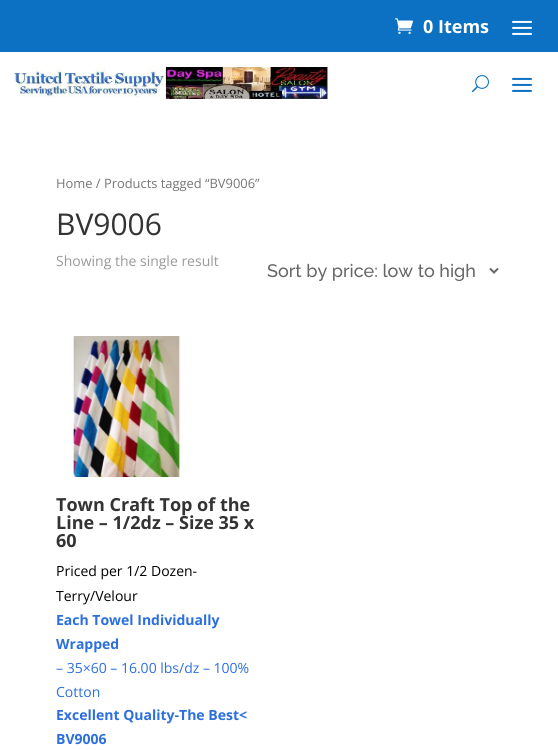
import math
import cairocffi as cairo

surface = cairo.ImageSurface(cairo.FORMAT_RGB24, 558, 750)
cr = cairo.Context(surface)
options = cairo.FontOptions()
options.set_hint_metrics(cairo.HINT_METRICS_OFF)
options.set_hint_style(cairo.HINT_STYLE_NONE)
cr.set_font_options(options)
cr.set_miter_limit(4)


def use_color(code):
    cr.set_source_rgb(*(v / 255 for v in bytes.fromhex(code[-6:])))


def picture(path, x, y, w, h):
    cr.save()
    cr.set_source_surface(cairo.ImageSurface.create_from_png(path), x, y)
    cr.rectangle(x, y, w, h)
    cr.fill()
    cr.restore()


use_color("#ffffff")
cr.paint()
use_color("#0c71c3")
cr.rectangle(0, 0, 558, 52)
cr.fill()
picture("img1.png", 395, 18, 18, 16)
cr.select_font_face("Open Sans", cairo.FONT_SLANT_NORMAL, cairo.FONT_WEIGHT_BOLD)
cr.set_font_size(18)
use_color("#ffffff")
cr.move_to(423, 33)
cr.show_text("0 Items")
picture("img2.png", 512, 20, 20, 15)
picture("img3.png", 14, 67, 315, 32)
picture("img4.png", 472, 75, 17, 18)
picture("img5.png", 512, 77, 20, 15)
cr.select_font_face("Open Sans")
cr.set_font_size(12.9)
use_color("#767676")
cr.move_to(56, 188)
cr.show_text("Home / Products tagged “BV9006”")
cr.set_font_size(30)
use_color("#333333")
cr.move_to(56, 235)
cr.show_text("BV9006")
cr.set_font_size(14)
use_color("#999999")
cr.move_to(56, 266)
cr.show_text("Showing the single result")
cr.new_path()
cr.move_to(490, 268.5)
cr.line_to(494, 272.5)
cr.line_to(498, 268.5)
use_color("#666666")
cr.stroke()
cr.select_font_face("Raleway Medium")
cr.set_font_size(18)
cr.move_to(267, 277)
cr.show_text("Sort by price: low to high")
picture("img6.png", 71, 336, 113, 141)
cr.select_font_face("Open Sans", cairo.FONT_SLANT_NORMAL, cairo.FONT_WEIGHT_BOLD)
use_color("#333333")
cr.move_to(56, 511)
cr.show_text("Town Craft Top of the")
cr.move_to(56, 529)
cr.show_text("Line – 1/2dz – Size 35 x")
cr.move_to(56, 547)
cr.show_text("60")
cr.select_font_face("Open Sans")
cr.set_font_size(14)
use_color("#000000")
cr.move_to(56, 576)
cr.show_text("Priced per 1/2 Dozen-")
cr.move_to(56, 601)
cr.show_text("Terry/Velour")
cr.select_font_face("Open Sans", cairo.FONT_SLANT_NORMAL, cairo.FONT_WEIGHT_BOLD)
use_color("#2c6fdf")
cr.move_to(56, 625)
cr.show_text("Each Towel Individually")
cr.move_to(56, 649)
cr.show_text("Wrapped")
cr.select_font_face("Open Sans")
cr.move_to(56, 673)
cr.show_text("– 35×60 – 16.00 lbs/dz – 100%")
cr.move_to(56, 697)
cr.show_text("Cotton")
cr.select_font_face("Open Sans", cairo.FONT_SLANT_NORMAL, cairo.FONT_WEIGHT_BOLD)
cr.move_to(56, 720)
cr.show_text("Excellent Quality-The Best<")
cr.move_to(56, 744)
cr.show_text("BV9006")
surface.write_to_png("result.png")
